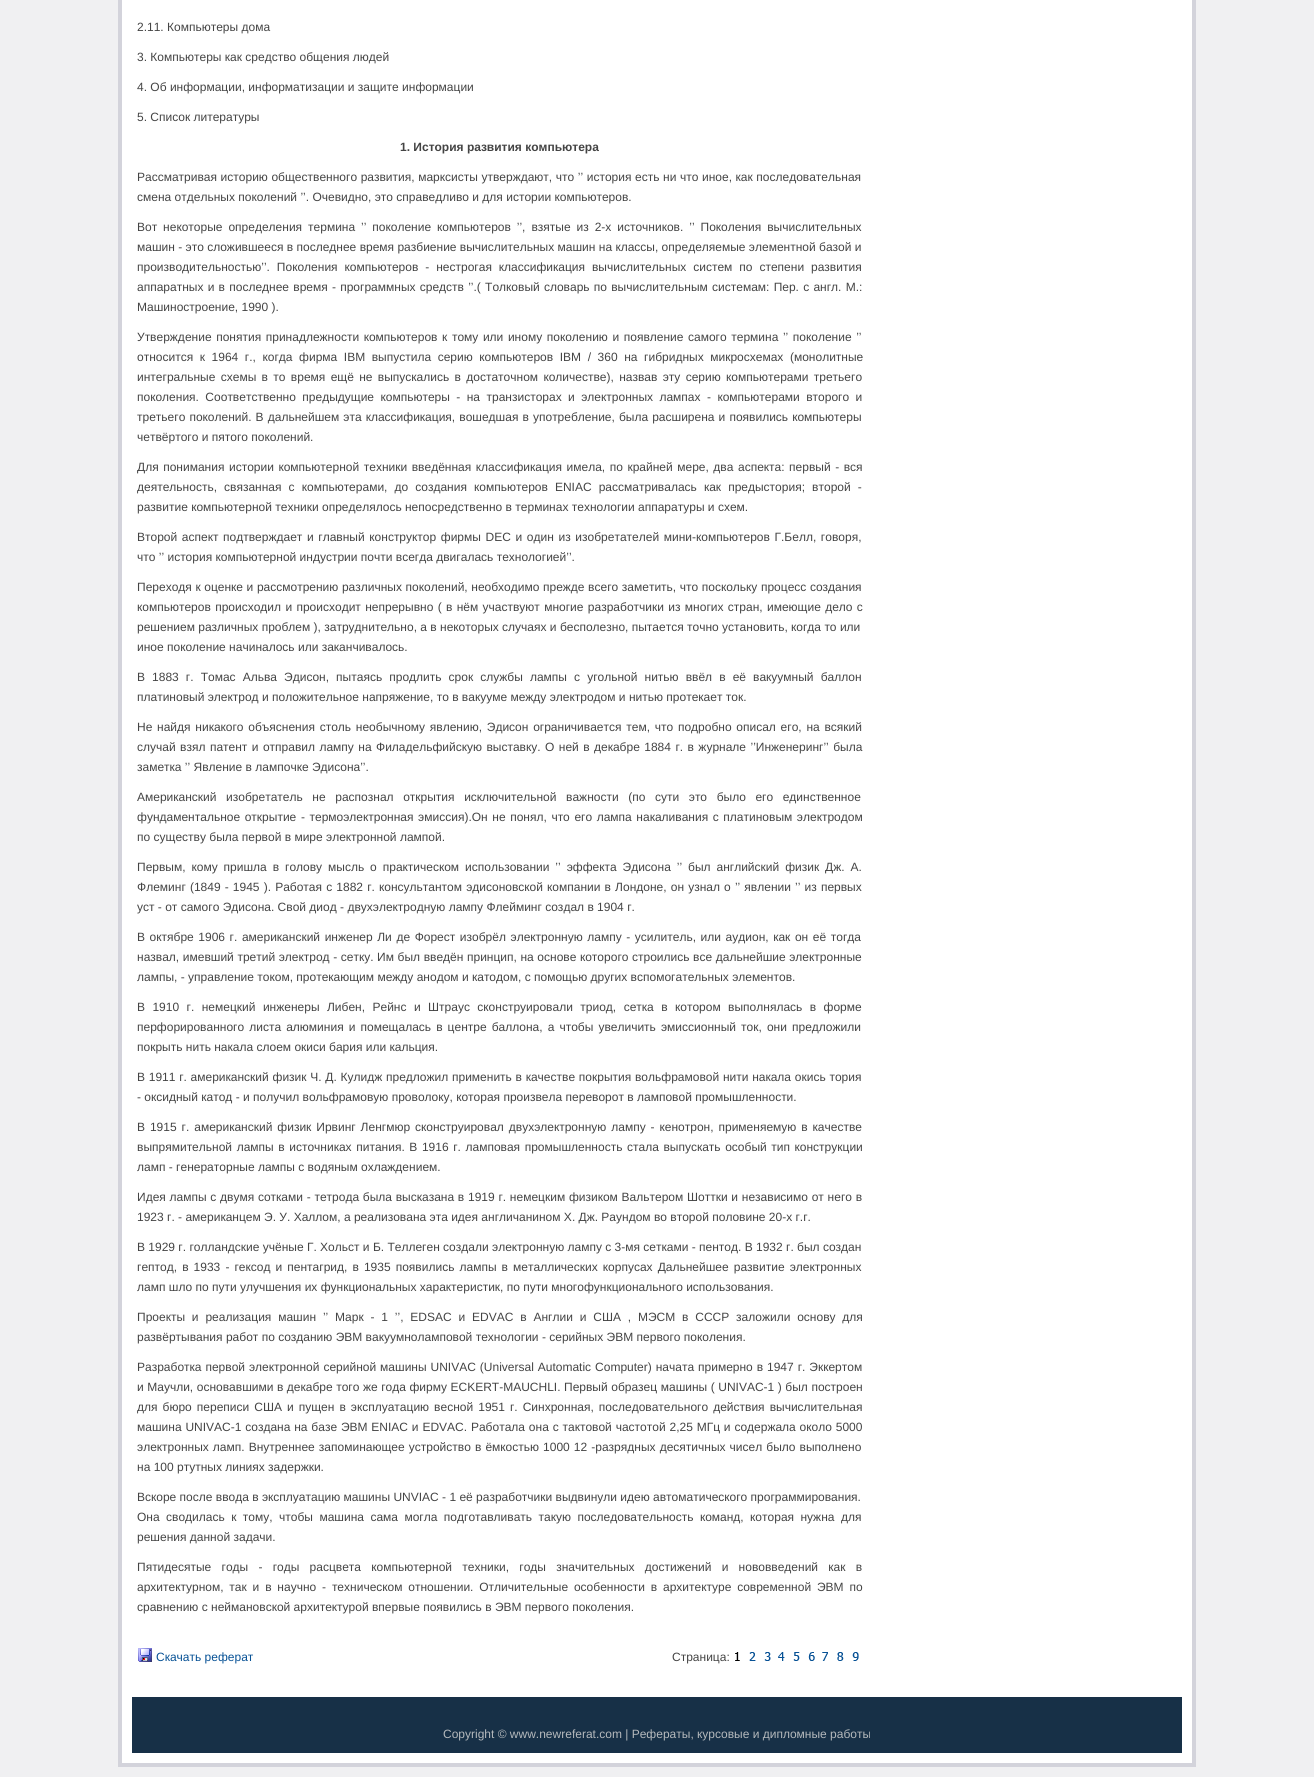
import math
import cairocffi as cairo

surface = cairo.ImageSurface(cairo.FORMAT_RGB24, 1314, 1777)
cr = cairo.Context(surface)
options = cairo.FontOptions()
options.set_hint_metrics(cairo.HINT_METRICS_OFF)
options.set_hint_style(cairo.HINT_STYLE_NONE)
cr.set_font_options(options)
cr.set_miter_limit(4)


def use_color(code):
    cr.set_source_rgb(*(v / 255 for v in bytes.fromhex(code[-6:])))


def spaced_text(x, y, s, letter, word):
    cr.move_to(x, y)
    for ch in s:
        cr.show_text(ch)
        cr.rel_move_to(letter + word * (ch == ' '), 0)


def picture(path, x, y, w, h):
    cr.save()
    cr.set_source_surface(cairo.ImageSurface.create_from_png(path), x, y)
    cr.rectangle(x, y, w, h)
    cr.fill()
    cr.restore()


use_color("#f0f0f2")
cr.paint()
use_color("#ffffff")
cr.rectangle(120, -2, 1074, 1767)
cr.fill_preserve()
use_color("#d3d3db")
cr.set_line_width(4)
cr.stroke()
cr.select_font_face("Liberation Sans")
cr.set_font_size(12)
use_color("#444444")
cr.move_to(137, 31)
cr.show_text("2.11. Компьютеры дома")
cr.move_to(137, 61)
cr.show_text("3. Компьютеры как средство общения людей")
cr.move_to(137, 91)
cr.show_text("4. Об информации, информатизации и защите информации")
cr.move_to(137, 121)
cr.show_text("5. Список литературы")
cr.select_font_face("Liberation Sans", cairo.FONT_SLANT_NORMAL, cairo.FONT_WEIGHT_BOLD)
cr.move_to(400, 151)
cr.show_text("1. История развития компьютера")
cr.select_font_face("Liberation Sans")
spaced_text(137, 181, "Рассматривая историю общественного развития, марксисты утверждают, что ’’ история есть ни что иное, как последовательная", 0, 0.25)
cr.move_to(137, 201)
cr.show_text("смена отдельных поколений ’’. Очевидно, это справедливо и для истории компьютеров.")
spaced_text(137, 231, "Вот некоторые определения термина ’’ поколение компьютеров ’’, взятые из 2-х источников. ’’ Поколения вычислительных", 0, 2.6)
cr.move_to(137, 251)
cr.show_text("машин - это сложившееся в последнее время разбиение вычислительных машин на классы, определяемые элементной базой и")
spaced_text(137, 271, "производительностью’’. Поколения компьютеров - нестрогая классификация вычислительных систем по степени развития", 0, 3.6)
spaced_text(137, 291, "аппаратных и в последнее время - программных средств ’’.( Толковый словарь по вычислительным системам: Пер. с англ. М.:", 0, 0.9)
cr.move_to(137, 311)
cr.show_text("Машиностроение, 1990 ).")
spaced_text(137, 341, "Утверждение понятия принадлежности компьютеров к тому или иному поколению и появление самого термина ’’ поколение ’’", 0, 1.25)
spaced_text(137, 361, "относится к 1964 г., когда фирма IBM выпустила серию компьютеров IBM / 360 на гибридных микросхемах (монолитные", 0, 3.25)
spaced_text(137, 381, "интегральные схемы в то время ещё не выпускались в достаточном количестве), назвав эту серию компьютерами третьего", 0, 2)
spaced_text(137, 401, "поколения. Соответственно предыдущие компьютеры - на транзисторах и электронных лампах - компьютерами второго и", 0, 3.1)
spaced_text(137, 421, "третьего поколений. В дальнейшем эта классификация, вошедшая в употребление, была расширена и появились компьютеры", 0, 0.75)
cr.move_to(137, 441)
cr.show_text("четвёртого и пятого поколений.")
spaced_text(137, 471, "Для понимания истории компьютерной техники введённая классификация имела, по крайней мере, два аспекта: первый - вся", 0, 1.2)
spaced_text(137, 491, "деятельность, связанная с компьютерами, до создания компьютеров ENIAC рассматривалась как предыстория; второй -", 0, 3.75)
cr.move_to(137, 511)
cr.show_text("развитие компьютерной техники определялось непосредственно в терминах технологии аппаратуры и схем.")
spaced_text(137, 541, "Второй аспект подтверждает и главный конструктор фирмы DEC и один из изобретателей мини-компьютеров Г.Белл, говоря,", 0, 1.3)
cr.move_to(137, 561)
cr.show_text("что ’’ история компьютерной индустрии почти всегда двигалась технологией’’.")
spaced_text(137, 591, "Переходя к оценке и рассмотрению различных поколений, необходимо прежде всего заметить, что поскольку процесс создания", 0, 0.25)
spaced_text(137, 611, "компьютеров происходил и происходит непрерывно ( в нём участвуют многие разработчики из многих стран, имеющие дело с", 0, 1)
cr.move_to(137, 631)
cr.show_text("решением различных проблем ), затруднительно, а в некоторых случаях и бесполезно, пытается точно установить, когда то или")
cr.move_to(137, 651)
cr.show_text("иное поколение начиналось или заканчивалось.")
spaced_text(137, 681, "В 1883 г. Томас Альва Эдисон, пытаясь продлить срок службы лампы с угольной нитью ввёл в её вакуумный баллон", 0, 3.75)
cr.move_to(137, 701)
cr.show_text("платиновый электрод и положительное напряжение, то в вакууме между электродом и нитью протекает ток.")
spaced_text(137, 731, "Не найдя никакого объяснения столь необычному явлению, Эдисон ограничивается тем, что подробно описал его, на всякий", 0, 1.4)
spaced_text(137, 751, "случай взял патент и отправил лампу на Филадельфийскую выставку. О ней в декабре 1884 г. в журнале ’’Инженеринг’’ была", 0, 1.1)
cr.move_to(137, 771)
cr.show_text("заметка ’’ Явление в лампочке Эдисона’’.")
spaced_text(137, 801, "Американский изобретатель не распознал открытия исключительной важности (по сути это было его единственное", 0, 6.25)
spaced_text(137, 821, "фундаментальное открытие - термоэлектронная эмиссия).Он не понял, что его лампа накаливания с платиновым электродом", 0, 1.25)
cr.move_to(137, 841)
cr.show_text("по существу была первой в мире электронной лампой.")
spaced_text(137, 871, "Первым, кому пришла в голову мысль о практическом использовании ’’ эффекта Эдисона ’’ был английский физик Дж. А.", 0, 2.6)
spaced_text(137, 891, "Флеминг (1849 - 1945 ). Работая с 1882 г. консультантом эдисоновской компании в Лондоне, он узнал о ’’ явлении ’’ из первых", 0, 0.8)
cr.move_to(137, 911)
cr.show_text("уст - от самого Эдисона. Свой диод - двухэлектродную лампу Флейминг создал в 1904 г.")
spaced_text(137, 941, "В октябре 1906 г. американский инженер Ли де Форест изобрёл электронную лампу - усилитель, или аудион, как он её тогда", 0, 1.25)
spaced_text(137, 961, "назвал, имевший третий электрод - сетку. Им был введён принцип, на основе которого строились все дальнейшие электронные", 0, 0.25)
cr.move_to(137, 981)
cr.show_text("лампы, - управление током, протекающим между анодом и катодом, с помощью других вспомогательных элементов.")
spaced_text(137, 1011, "В 1910 г. немецкий инженеры Либен, Рейнс и Штраус сконструировали триод, сетка в котором выполнялась в форме", 0, 4.1)
spaced_text(137, 1031, "перфорированного листа алюминия и помещалась в центре баллона, а чтобы увеличить эмиссионный ток, они предложили", 0, 1.75)
cr.move_to(137, 1051)
cr.show_text("покрыть нить накала слоем окиси бария или кальция.")
spaced_text(137, 1081, "В 1911 г. американский физик Ч. Д. Кулидж предложил применить в качестве покрытия вольфрамовой нити накала окись тория", 0, 0.4)
cr.move_to(137, 1101)
cr.show_text("- оксидный катод - и получил вольфрамовую проволоку, которая произвела переворот в ламповой промышленности.")
spaced_text(137, 1131, "В 1915 г. американский физик Ирвинг Ленгмюр сконструировал двухэлектронную лампу - кенотрон, применяемую в качестве", 0, 1.6)
spaced_text(137, 1151, "выпрямительной лампы в источниках питания. В 1916 г. ламповая промышленность стала выпускать особый тип конструкции", 0, 1.25)
cr.move_to(137, 1171)
cr.show_text("ламп - генераторные лампы с водяным охлаждением.")
spaced_text(137, 1201, "Идея лампы с двумя сотками - тетрода была высказана в 1919 г. немецким физиком Вальтером Шоттки и независимо от него в", 0, 0.4)
cr.move_to(137, 1221)
cr.show_text("1923 г. - американцем Э. У. Халлом, а реализована эта идея англичанином Х. Дж. Раундом во второй половине 20-х г.г.")
cr.move_to(137, 1251)
cr.show_text("В 1929 г. голландские учёные Г. Хольст и Б. Теллеген создали электронную лампу с 3-мя сетками - пентод. В 1932 г. был создан")
spaced_text(137, 1271, "гептод, в 1933 - гексод и пентагрид, в 1935 появились лампы в металлических корпусах Дальнейшее развитие электронных", 0, 1.75)
cr.move_to(137, 1291)
cr.show_text("ламп шло по пути улучшения их функциональных характеристик, по пути многофункционального использования.")
spaced_text(137, 1321, "Проекты и реализация машин ’’ Марк - 1 ’’, EDSAC и EDVAC в Англии и США , МЭСМ в СССР заложили основу для", 0, 3.5)
cr.move_to(137, 1341)
cr.show_text("развёртывания работ по созданию ЭВМ вакуумноламповой технологии - серийных ЭВМ первого поколения.")
spaced_text(137, 1371, "Разработка первой электронной серийной машины UNIVAC (Universal Automatic Computer) начата примерно в 1947 г. Эккертом", 0, 0.6)
spaced_text(137, 1391, "и Маучли, основавшими в декабре того же года фирму ECKERT-MAUCHLI. Первый образец машины ( UNIVAC-1 ) был построен", 0, 0.2)
spaced_text(137, 1411, "для бюро переписи США и пущен в эксплуатацию весной 1951 г. Синхронная, последовательного действия вычислительная", 0, 1.7)
spaced_text(137, 1431, "машина UNIVAC-1 создана на базе ЭВМ ENIAC и EDVAC. Работала она с тактовой частотой 2,25 МГц и содержала около 5000", 0, 0.5)
spaced_text(137, 1451, "электронных ламп. Внутреннее запоминающее устройство в ёмкостью 1000 12 -разрядных десятичных чисел было выполнено", 0, 0.75)
cr.move_to(137, 1471)
cr.show_text("на 100 ртутных линиях задержки.")
cr.move_to(137, 1501)
cr.show_text("Вскоре после ввода в эксплуатацию машины UNVIAC - 1 её разработчики выдвинули идею автоматического программирования.")
spaced_text(137, 1521, "Она сводилась к тому, чтобы машина сама могла подготавливать такую последовательность команд, которая нужна для", 0, 3.1)
cr.move_to(137, 1541)
cr.show_text("решения данной задачи.")
spaced_text(137, 1571, "Пятидесятые годы - годы расцвета компьютерной техники, годы значительных достижений и нововведений как в", 0, 6.9)
spaced_text(137, 1591, "архитектурном, так и в научно - техническом отношении. Отличительные особенности в архитектуре современной ЭВМ по", 0, 2.5)
cr.move_to(137, 1611)
cr.show_text("сравнению с неймановской архитектурой впервые появились в ЭВМ первого поколения.")
picture("img1.png", 138, 1648, 14, 14)
use_color("#075195")
cr.move_to(156, 1661)
cr.show_text("Скачать реферат")
use_color("#444444")
cr.move_to(672, 1661)
cr.show_text("Страница:")
picture("img2.png", 735, 1652, 5, 9)
picture("img3.png", 749, 1652, 7, 9)
picture("img4.png", 764, 1652, 7, 9)
picture("img5.png", 778, 1652, 7, 9)
picture("img6.png", 793, 1652, 7, 9)
picture("img7.png", 808, 1652, 7, 9)
picture("img8.png", 822, 1652, 6, 9)
picture("img9.png", 837, 1652, 7, 9)
picture("img10.png", 852, 1652, 7, 9)
use_color("#173047")
cr.rectangle(132, 1697, 1050, 56)
cr.fill()
use_color("#b5b9bc")
cr.move_to(443, 1738)
cr.show_text("Copyright © www.newreferat.com | Рефераты, курсовые и дипломные работы")
surface.write_to_png("result.png")
